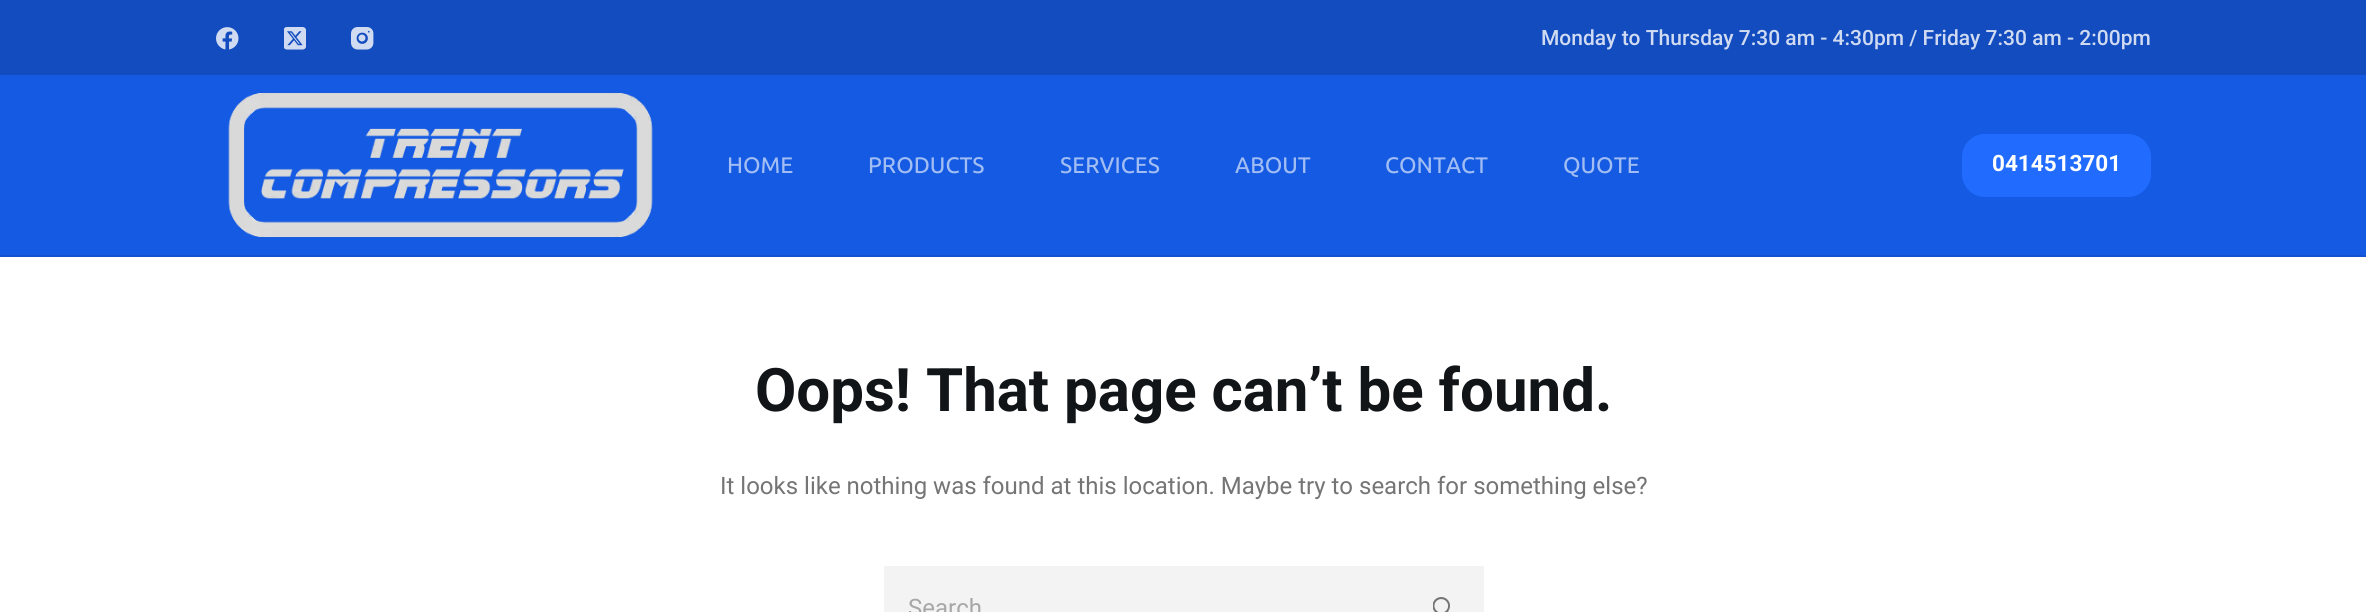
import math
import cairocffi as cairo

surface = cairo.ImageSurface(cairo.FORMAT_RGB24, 2366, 612)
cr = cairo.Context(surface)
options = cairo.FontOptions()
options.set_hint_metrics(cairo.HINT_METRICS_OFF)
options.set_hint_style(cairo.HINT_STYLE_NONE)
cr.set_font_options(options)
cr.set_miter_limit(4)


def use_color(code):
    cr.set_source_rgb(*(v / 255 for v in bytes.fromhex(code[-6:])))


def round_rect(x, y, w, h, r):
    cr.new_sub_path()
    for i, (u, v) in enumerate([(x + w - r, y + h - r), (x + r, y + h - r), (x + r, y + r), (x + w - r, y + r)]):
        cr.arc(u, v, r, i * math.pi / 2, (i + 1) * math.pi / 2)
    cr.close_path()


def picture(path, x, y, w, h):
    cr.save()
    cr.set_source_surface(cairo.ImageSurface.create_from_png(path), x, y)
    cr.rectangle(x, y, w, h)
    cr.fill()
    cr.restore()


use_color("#ffffff")
cr.paint()
use_color("#124cbf")
cr.rectangle(0, 0, 2366, 75)
cr.fill()
picture("img1.png", 216, 27, 23, 23)
picture("img2.png", 284, 27, 22, 23)
picture("img3.png", 351, 27, 23, 23)
cr.select_font_face("Roboto Medium")
cr.set_font_size(21)
use_color("#d0dbf2")
cr.move_to(1541, 45)
cr.show_text("Monday to Thursday 7:30 am - 4:30pm / Friday 7:30 am - 2:00pm")
use_color("#145ae2")
cr.rectangle(0, 75, 2366, 180)
cr.fill()
use_color("#1353d1")
cr.rectangle(0, 255, 2366, 2)
cr.fill()
picture("img4.png", 228, 92, 425, 146)
cr.select_font_face("Ubuntu Medium")
cr.set_font_size(22.5)
use_color("#a1bdf3")
cr.move_to(727, 173)
cr.show_text("HOME")
cr.move_to(868, 173)
cr.show_text("PRODUCTS")
cr.move_to(1060, 173)
cr.show_text("SERVICES")
cr.move_to(1235, 173)
cr.show_text("ABOUT")
cr.move_to(1385, 173)
cr.show_text("CONTACT")
cr.move_to(1563, 173)
cr.show_text("QUOTE")
use_color("#216cff")
round_rect(1962, 134, 189, 63, 23)
cr.fill()
cr.select_font_face("Roboto", cairo.FONT_SLANT_NORMAL, cairo.FONT_WEIGHT_BOLD)
use_color("#ffffff")
cr.move_to(1992, 171)
cr.show_text("0414513701")
cr.set_font_size(60)
use_color("#111518")
cr.move_to(755, 411)
cr.show_text("Oops! That page can’t be found.")
cr.select_font_face("Roboto")
cr.set_font_size(24)
use_color("#757575")
cr.move_to(720, 494)
cr.show_text("It looks like nothing was found at this location. Maybe try to search for something else?")
use_color("#f3f3f3")
cr.rectangle(884, 566, 600, 46)
cr.fill()
use_color("#a7a7a7")
cr.move_to(908, 616)
cr.show_text("Search")
picture("img5.png", 1433, 597, 17, 15)
surface.write_to_png("result.png")
